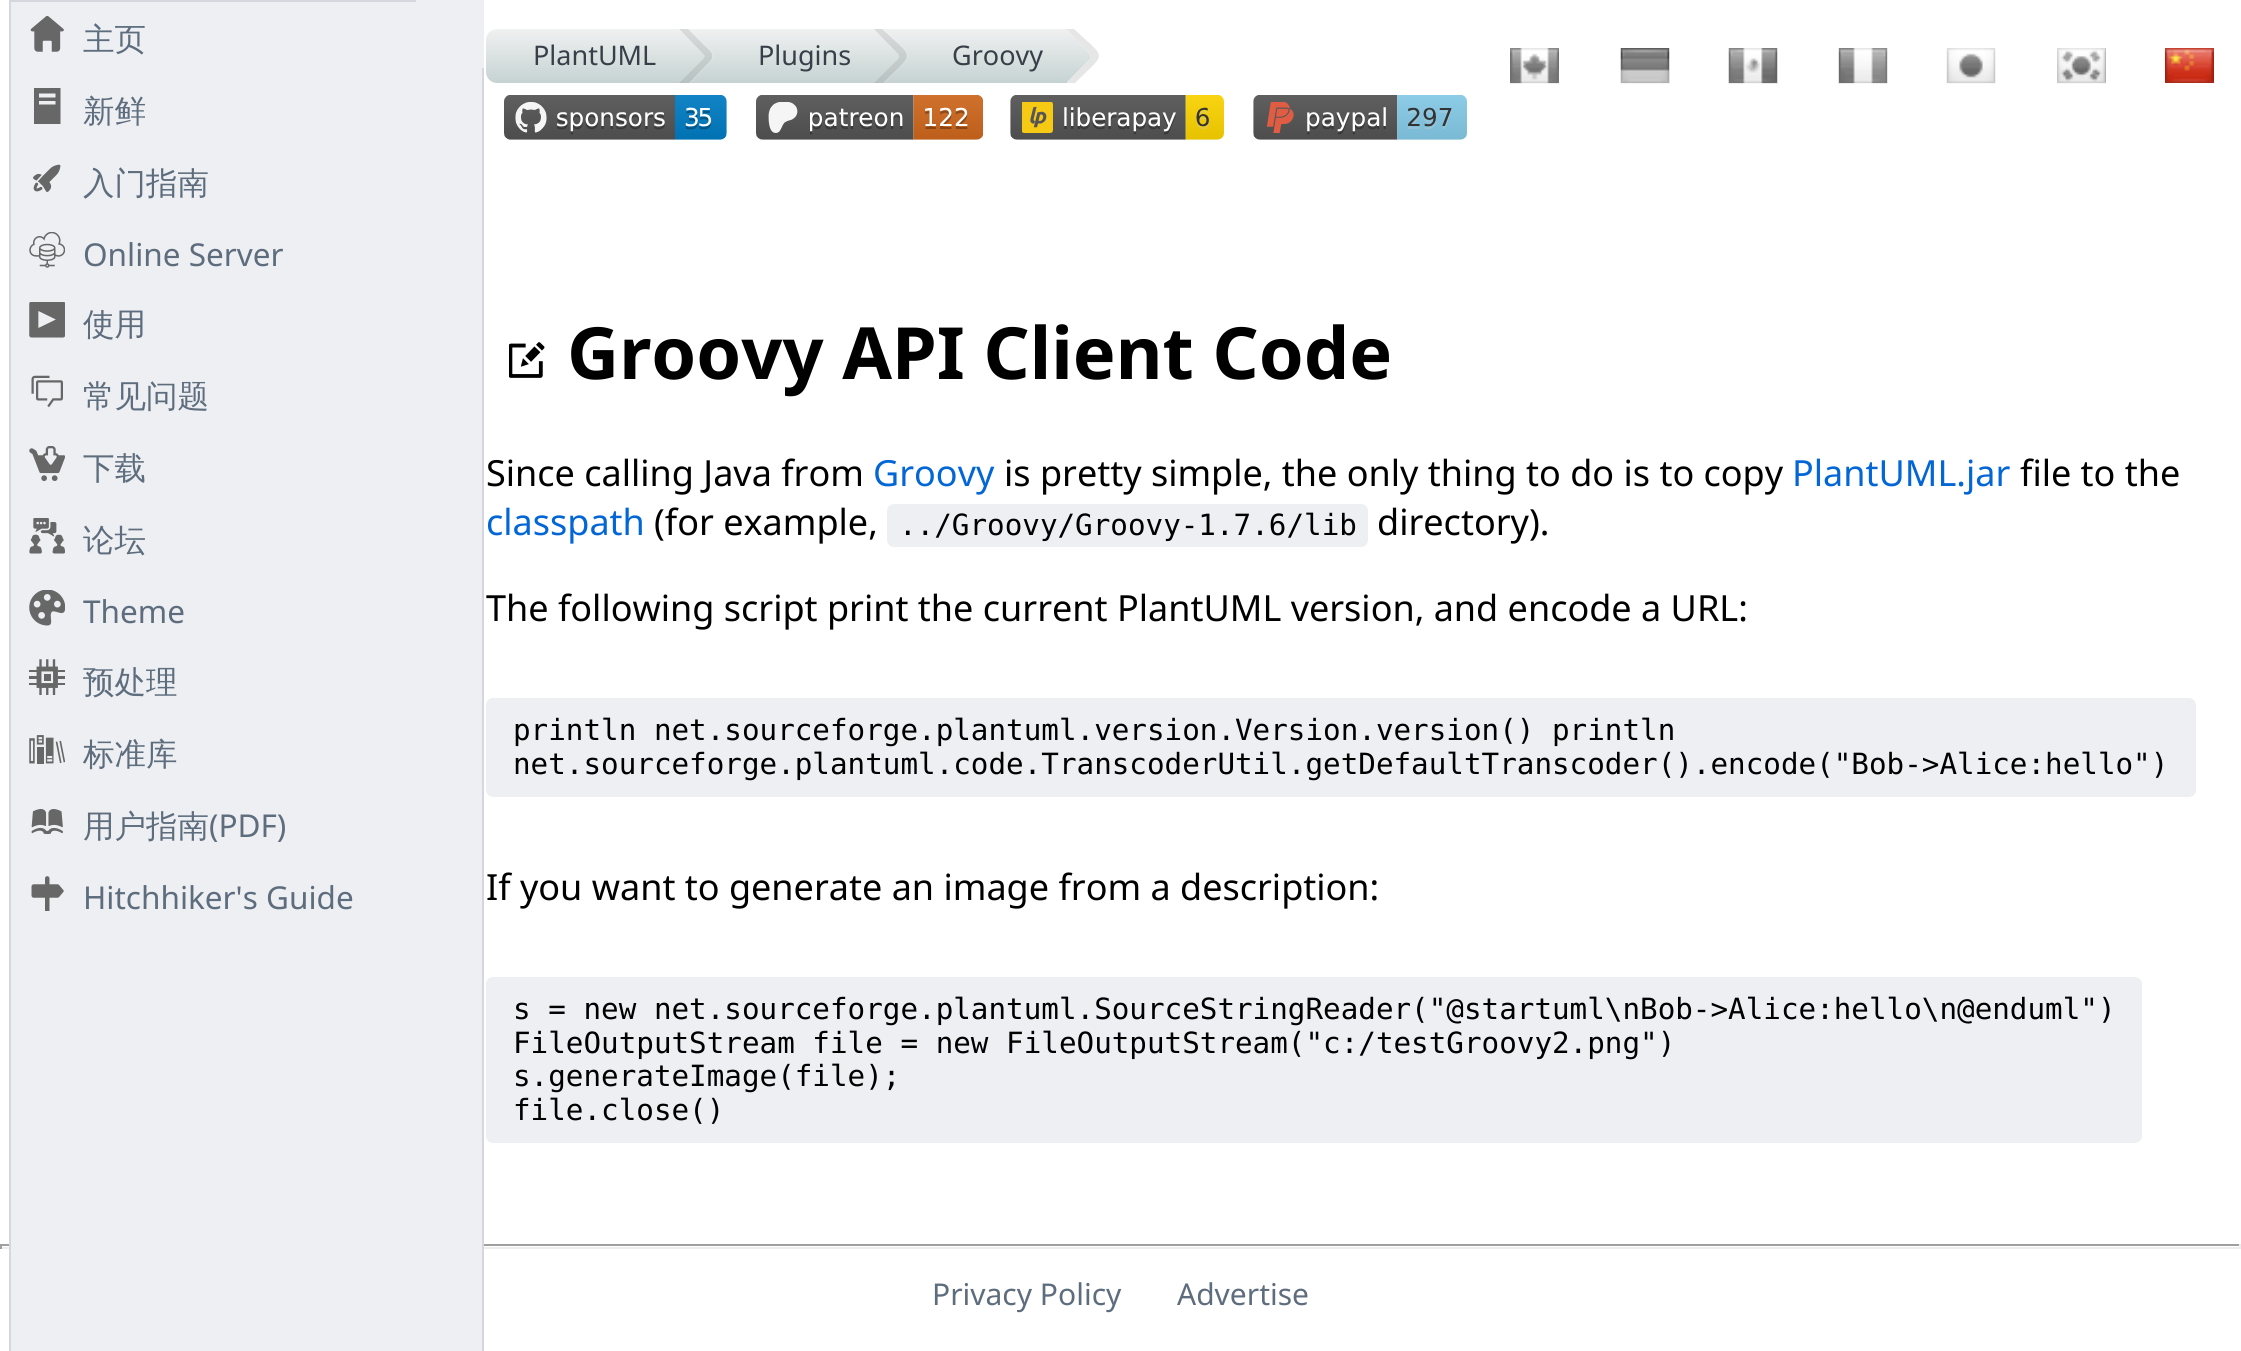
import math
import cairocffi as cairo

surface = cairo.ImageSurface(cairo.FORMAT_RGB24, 2241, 1351)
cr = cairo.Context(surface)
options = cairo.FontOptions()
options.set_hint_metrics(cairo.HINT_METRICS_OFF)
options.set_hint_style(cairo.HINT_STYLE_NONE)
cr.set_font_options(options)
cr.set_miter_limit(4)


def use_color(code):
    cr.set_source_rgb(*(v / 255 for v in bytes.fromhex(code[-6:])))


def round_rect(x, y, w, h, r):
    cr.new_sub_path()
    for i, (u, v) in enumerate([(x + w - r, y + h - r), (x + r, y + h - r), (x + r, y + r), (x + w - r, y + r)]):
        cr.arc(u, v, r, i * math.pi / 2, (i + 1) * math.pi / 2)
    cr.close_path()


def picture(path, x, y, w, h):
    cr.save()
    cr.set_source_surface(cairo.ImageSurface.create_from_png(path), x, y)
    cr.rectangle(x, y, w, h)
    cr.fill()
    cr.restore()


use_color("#ffffff")
cr.paint()
use_color("#d4d8de")
cr.rectangle(9, 0, 405, 2)
cr.fill()
use_color("#edeff3")
cr.rectangle(414, 0, 68, 2)
cr.fill()
use_color("#d4d8de")
cr.rectangle(414, 0, 2, 2)
cr.fill()
use_color("#edeff3")
cr.rectangle(482, 0, 2, 68)
cr.fill()
use_color("#9f9f9f")
cr.rectangle(0, 1244, 2241, 2)
cr.fill()
use_color("#eeeeee")
cr.rectangle(2239, 1244, 2, 5)
cr.fill()
cr.rectangle(0, 1247, 2241, 2)
cr.fill()
use_color("#d4d8de")
cr.rectangle(482, 68, 2, 1283)
cr.fill()
use_color("#edeff3")
cr.rectangle(11, 2, 471, 1349)
cr.fill()
use_color("#d4d8de")
cr.rectangle(9, 2, 2, 1349)
cr.fill()
picture("img1.png", 30, 16, 34, 36)
cr.select_font_face("WenQuanYi Zen Hei Medium")
cr.set_font_size(31.5)
use_color("#5e6d7d")
cr.move_to(83, 50)
cr.show_text("主页")
use_color("#676767")
cr.new_path()
cr.move_to(34, 88)
cr.line_to(34, 124)
cr.line_to(60.5, 124)
cr.line_to(60.5, 88)
cr.close_path()
cr.move_to(55.5, 104.5)
cr.line_to(39, 104.5)
cr.line_to(39, 101)
cr.line_to(55.5, 101)
cr.close_path()
cr.move_to(55.5, 97.5)
cr.line_to(39, 97.5)
cr.line_to(39, 93.5)
cr.line_to(55.5, 93.5)
cr.close_path()
cr.fill()
use_color("#5e6d7d")
cr.move_to(83, 122)
cr.show_text("新鲜")
picture("img2.png", 33, 164, 28, 28)
cr.move_to(83, 194)
cr.show_text("入门指南")
picture("img3.png", 29, 232, 36, 36)
cr.select_font_face("Noto Sans")
cr.move_to(83, 266)
cr.show_text("Online Server")
picture("img4.png", 29, 302, 36, 36)
cr.select_font_face("WenQuanYi Zen Hei Medium")
cr.move_to(83, 335)
cr.show_text("使用")
picture("img5.png", 31, 375, 32, 33)
cr.move_to(83, 407)
cr.show_text("常见问题")
picture("img6.png", 29, 446, 36, 35)
cr.move_to(83, 479)
cr.show_text("下载")
picture("img7.png", 29, 518, 36, 36)
cr.move_to(83, 551)
cr.show_text("论坛")
picture("img8.png", 29, 590, 36, 36)
cr.select_font_face("Noto Sans")
cr.move_to(83, 623)
cr.show_text("Theme")
picture("img9.png", 29, 659, 36, 36)
cr.select_font_face("WenQuanYi Zen Hei Medium")
cr.move_to(83, 693)
cr.show_text("预处理")
picture("img10.png", 29, 735, 36, 29)
cr.move_to(83, 765)
cr.show_text("标准库")
picture("img11.png", 31, 809, 32, 26)
cr.move_to(83, 837)
cr.show_text("用户指南")
cr.select_font_face("Noto Sans")
cr.move_to(209, 837)
cr.show_text("(PDF)")
picture("img12.png", 31, 876, 33, 35)
cr.move_to(83, 909)
cr.show_text("Hitchhiker's Guide")
gradient = cairo.LinearGradient(583, 29, 583, 83)
gradient.add_color_stop_rgba(0, 0.941, 0.945, 0.945, 1)
gradient.add_color_stop_rgba(1, 0.776, 0.824, 0.824, 1)
cr.set_source(gradient)
cr.new_path()
cr.move_to(497, 29)
cr.line_to(680, 29)
cr.line_to(680, 83)
cr.line_to(497, 83)
cr.curve_to(491, 83, 486, 78, 486, 72)
cr.line_to(486, 40)
cr.curve_to(486, 34, 491, 29, 497, 29)
cr.close_path()
cr.fill()
cr.set_font_size(27)
use_color("#373f49")
cr.move_to(533, 65)
cr.show_text("PlantUML")
gradient = cairo.LinearGradient(776, 29, 776, 83)
gradient.add_color_stop_rgba(0, 0.941, 0.945, 0.945, 1)
gradient.add_color_stop_rgba(1, 0.776, 0.824, 0.824, 1)
cr.set_source(gradient)
cr.rectangle(680, 29, 193, 54)
cr.fill()
cr.set_source_rgba(1, 1, 1, 0.1)
cr.new_path()
cr.move_to(682, 83)
cr.line_to(691, 83)
cr.line_to(712, 61)
cr.curve_to(715, 58, 715, 54, 712, 51)
cr.line_to(690, 29)
cr.line_to(682, 29)
cr.line_to(680, 31)
cr.line_to(703, 54)
cr.curve_to(705, 55, 705, 57, 703, 59)
cr.line_to(681, 82)
cr.close_path()
cr.fill()
cr.set_source_rgba(0, 0, 0, 0.1)
cr.new_path()
cr.move_to(679, 29)
cr.line_to(703, 54)
cr.curve_to(705, 55, 705, 57, 703, 59)
cr.line_to(679, 83)
cr.line_to(689, 83)
cr.line_to(710, 61)
cr.curve_to(713, 58, 713, 54, 710, 51)
cr.line_to(688, 29)
cr.line_to(679, 29)
cr.line_to(678, 30)
cr.close_path()
cr.fill()
gradient = cairo.LinearGradient(679, 29, 679, 83)
gradient.add_color_stop_rgba(0, 0.941, 0.945, 0.945, 1)
gradient.add_color_stop_rgba(1, 0.776, 0.824, 0.824, 1)
cr.set_source(gradient)
cr.new_path()
cr.move_to(679, 29)
cr.line_to(703, 54)
cr.curve_to(705, 55, 705, 57, 703, 59)
cr.line_to(679, 83)
cr.curve_to(664, 68, 664, 44, 679, 29)
cr.close_path()
cr.fill()
use_color("#373f49")
cr.move_to(758, 65)
cr.show_text("Plugins")
gradient = cairo.LinearGradient(970, 29, 970, 83)
gradient.add_color_stop_rgba(0, 0.941, 0.945, 0.945, 1)
gradient.add_color_stop_rgba(1, 0.776, 0.824, 0.824, 1)
cr.set_source(gradient)
cr.rectangle(873, 29, 194, 54)
cr.fill()
cr.set_source_rgba(1, 1, 1, 0.1)
cr.new_path()
cr.move_to(876, 83)
cr.line_to(885, 83)
cr.curve_to(917, 51, 917, 60, 884, 29)
cr.line_to(876, 29)
cr.line_to(875, 31)
cr.line_to(898, 54)
cr.curve_to(899, 55, 899, 57, 898, 59)
cr.line_to(875, 82)
cr.close_path()
cr.fill()
cr.set_source_rgba(0, 0, 0, 0.1)
cr.new_path()
cr.move_to(874, 83)
cr.line_to(883, 83)
cr.curve_to(915, 51, 915, 60, 882, 29)
cr.line_to(874, 29)
cr.line_to(898, 54)
cr.curve_to(899, 55, 899, 57, 898, 59)
cr.close_path()
cr.fill()
gradient = cairo.LinearGradient(873, 29, 873, 83)
gradient.add_color_stop_rgba(0, 0.941, 0.945, 0.945, 1)
gradient.add_color_stop_rgba(1, 0.776, 0.824, 0.824, 1)
cr.set_source(gradient)
cr.new_path()
cr.move_to(873, 29)
cr.line_to(898, 54)
cr.curve_to(899, 55, 899, 57, 898, 59)
cr.line_to(873, 83)
cr.curve_to(859, 68, 859, 44, 873, 29)
cr.close_path()
cr.fill()
use_color("#373f49")
cr.move_to(952, 65)
cr.show_text("Groovy")
cr.set_source_rgba(0, 0, 0, 0.1)
cr.new_path()
cr.move_to(1066, 83)
cr.line_to(1075, 83)
cr.curve_to(1107, 51, 1107, 60, 1074, 29)
cr.line_to(1066, 29)
cr.line_to(1090, 54)
cr.curve_to(1091, 55, 1091, 57, 1090, 59)
cr.close_path()
cr.fill()
gradient = cairo.LinearGradient(1066, 29, 1066, 83)
gradient.add_color_stop_rgba(0, 0.941, 0.945, 0.945, 1)
gradient.add_color_stop_rgba(1, 0.776, 0.824, 0.824, 1)
cr.set_source(gradient)
cr.new_path()
cr.move_to(1066, 29)
cr.line_to(1090, 54)
cr.curve_to(1091, 55, 1091, 57, 1090, 59)
cr.line_to(1066, 83)
cr.curve_to(1051, 68, 1051, 44, 1066, 29)
cr.close_path()
cr.fill()
picture("img13.png", 504, 95, 223, 45)
picture("img14.png", 756, 95, 227, 45)
picture("img15.png", 1010, 95, 214, 45)
picture("img16.png", 1253, 95, 214, 45)
picture("img17.png", 1510, 48, 49, 36)
cr.rectangle(1507.5, 45.5, 54, 40)
cr.set_source_rgba(0.996, 0.996, 0.996, 0.75)
cr.set_line_width(5)
cr.stroke()
picture("img18.png", 1620, 48, 50, 36)
cr.rectangle(1618.5, 45.5, 53, 40)
cr.stroke()
picture("img19.png", 1728, 48, 50, 36)
cr.rectangle(1726.5, 45.5, 53, 40)
cr.stroke()
picture("img20.png", 1838, 48, 50, 36)
cr.rectangle(1836.5, 45.5, 53, 40)
cr.stroke()
picture("img21.png", 1946, 48, 50, 36)
cr.rectangle(1944.5, 45.5, 53, 40)
cr.stroke()
picture("img22.png", 2057, 48, 49, 36)
cr.rectangle(2054.5, 45.5, 54, 40)
cr.stroke()
picture("img23.png", 2165, 48, 49, 35)
picture("img24.png", 509, 342, 36, 36)
cr.select_font_face("Noto Sans", cairo.FONT_SLANT_NORMAL, cairo.FONT_WEIGHT_BOLD)
cr.set_font_size(72)
use_color("#000000")
cr.move_to(567, 379)
cr.show_text("Groovy API Client Code")
cr.select_font_face("Noto Sans")
cr.set_font_size(36)
cr.move_to(486, 486)
cr.show_text("Since calling Java from")
use_color("#0366d6")
cr.move_to(873, 486)
cr.show_text("Groovy")
use_color("#000000")
cr.move_to(1004, 486)
cr.show_text("is pretty simple, the only thing to do is to copy")
use_color("#0366d6")
cr.move_to(1792, 486)
cr.show_text("PlantUML.jar")
use_color("#000000")
cr.move_to(2020, 486)
cr.show_text("file to the")
use_color("#0366d6")
cr.move_to(486, 535)
cr.show_text("classpath")
use_color("#000000")
cr.move_to(654, 535)
cr.show_text("(for example,")
use_color("#edeff3")
round_rect(887, 504, 481, 43, 7)
cr.fill()
cr.select_font_face("DejaVu Sans Mono")
cr.set_font_size(29.25)
use_color("#000000")
cr.move_to(899, 535)
cr.show_text("../Groovy/Groovy-1.7.6/lib")
cr.select_font_face("Noto Sans")
cr.set_font_size(36)
cr.move_to(1377, 535)
cr.show_text("directory).")
cr.move_to(486, 621)
cr.show_text("The following script print the current PlantUML version, and encode a URL:")
use_color("#edeff3")
round_rect(486, 698, 1710, 99, 7)
cr.fill()
cr.select_font_face("DejaVu Sans Mono")
cr.set_font_size(29.25)
use_color("#000000")
cr.move_to(513, 740)
cr.show_text("println net.sourceforge.plantuml.version.Version.version() println")
cr.move_to(513, 774)
cr.show_text("net.sourceforge.plantuml.code.TranscoderUtil.getDefaultTranscoder().encode(\"Bob->Alice:hello\")")
cr.select_font_face("Noto Sans")
cr.set_font_size(36)
cr.move_to(486, 900)
cr.show_text("If you want to generate an image from a description:")
use_color("#edeff3")
round_rect(486, 977, 1656, 166, 7)
cr.fill()
cr.select_font_face("DejaVu Sans Mono")
cr.set_font_size(29.25)
use_color("#000000")
cr.move_to(513, 1019)
cr.show_text("s = new net.sourceforge.plantuml.SourceStringReader(\"@startuml\\nBob->Alice:hello\\n@enduml\")")
cr.move_to(513, 1053)
cr.show_text("FileOutputStream file = new FileOutputStream(\"c:/testGroovy2.png\")")
cr.move_to(513, 1086)
cr.show_text("s.generateImage(file);")
cr.move_to(513, 1120)
cr.show_text("file.close()")
use_color("#9f9f9f")
cr.rectangle(0, 1244, 2, 5)
cr.fill()
cr.select_font_face("Noto Sans")
cr.set_font_size(30)
use_color("#5e6d7d")
cr.move_to(932, 1305)
cr.show_text("Privacy Policy")
cr.move_to(1177, 1305)
cr.show_text("Advertise")
surface.write_to_png("result.png")
